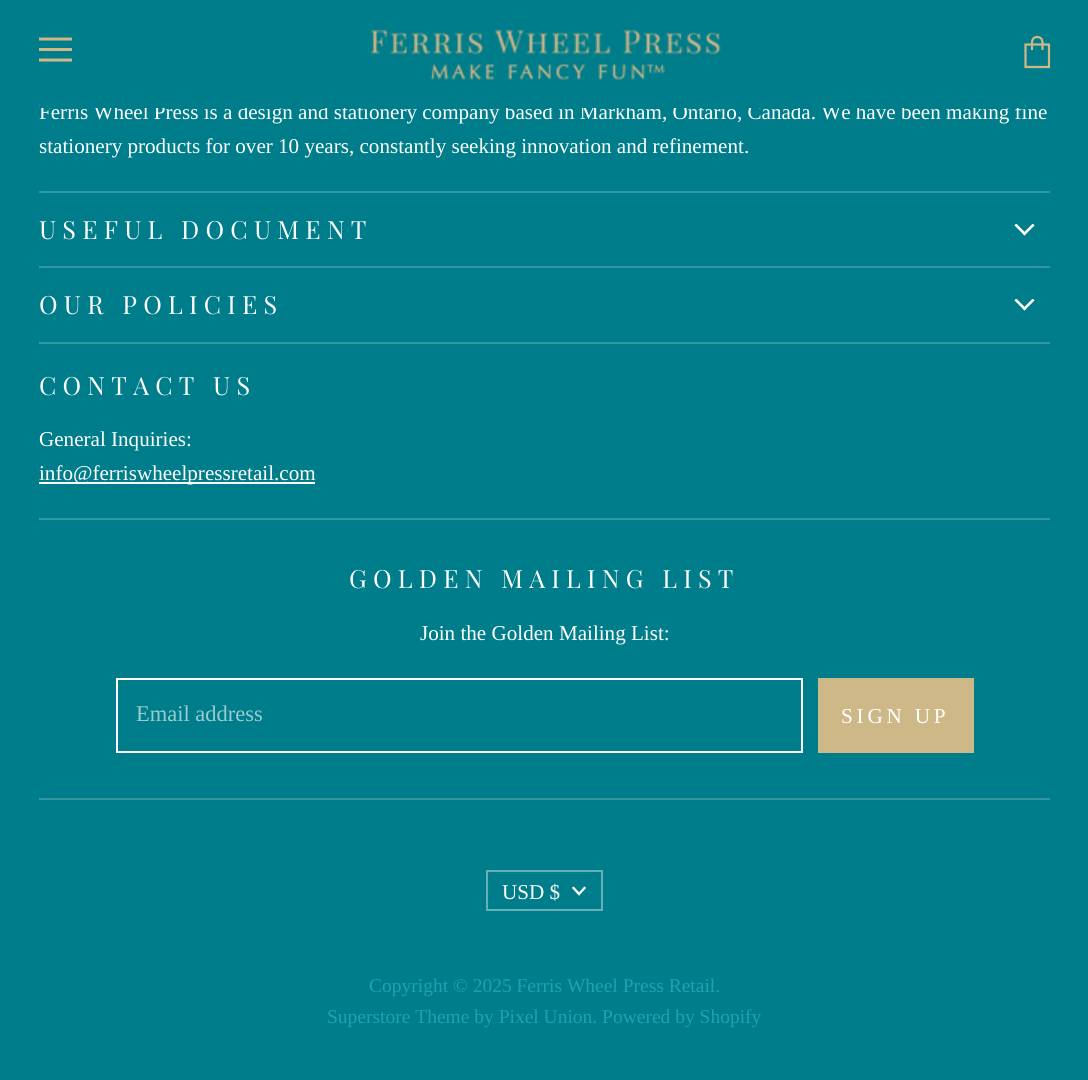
import math
import cairocffi as cairo

surface = cairo.ImageSurface(cairo.FORMAT_RGB24, 1088, 1080)
cr = cairo.Context(surface)
options = cairo.FontOptions()
options.set_hint_metrics(cairo.HINT_METRICS_OFF)
options.set_hint_style(cairo.HINT_STYLE_NONE)
cr.set_font_options(options)
cr.set_miter_limit(4)


def use_color(code):
    cr.set_source_rgb(*(v / 255 for v in bytes.fromhex(code[-6:])))


def spaced_text(x, y, s, letter, word):
    cr.move_to(x, y)
    for ch in s:
        cr.show_text(ch)
        cr.rel_move_to(letter + word * (ch == ' '), 0)


def picture(path, x, y, w, h):
    cr.save()
    cr.set_source_surface(cairo.ImageSurface.create_from_png(path), x, y)
    cr.rectangle(x, y, w, h)
    cr.fill()
    cr.restore()


use_color("#007d8a")
cr.paint()
cr.select_font_face("Liberation Serif")
cr.set_font_size(21.1)
use_color("#ffffff")
cr.move_to(39, 119)
cr.show_text("Ferris Wheel Press is a design and stationery company based in Markham, Ontario, Canada. We have been making fine")
use_color("#007d8a")
cr.rectangle(40, 104, 985, 4)
cr.fill()
cr.new_path()
cr.move_to(70.5, 39)
cr.line_to(40.5, 39)
use_color("#ceb888")
cr.set_line_width(3)
cr.set_line_cap(cairo.LINE_CAP_SQUARE)
cr.set_line_join(cairo.LINE_JOIN_ROUND)
cr.stroke()
cr.rectangle(39, 48, 33, 3)
cr.fill()
cr.new_path()
cr.move_to(70.5, 60)
cr.line_to(40.5, 60)
cr.stroke()
picture("img1.png", 370, 29, 351, 51)
cr.new_path()
cr.move_to(1025.5, 44.5)
cr.line_to(1049, 44.5)
cr.line_to(1049, 67)
cr.line_to(1025.5, 67)
cr.close_path()
cr.move_to(1042.5, 50)
cr.line_to(1042.5, 43)
cr.curve_to(1042.5, 38.5, 1040, 37, 1037, 37)
cr.curve_to(1034.5, 37, 1032, 38.5, 1032, 43)
cr.line_to(1032, 50)
cr.set_line_width(2.2)
cr.set_line_cap(cairo.LINE_CAP_BUTT)
cr.set_line_join(cairo.LINE_JOIN_MITER)
cr.stroke()
use_color("#3397a1")
cr.rectangle(39, 191, 1011, 2)
cr.fill()
use_color("#ffffff")
cr.move_to(39, 153)
cr.show_text("stationery products for over 10 years, constantly seeking innovation and refinement.")
use_color("#3397a1")
cr.rectangle(39, 266, 1011, 2)
cr.fill()
cr.select_font_face("Playfair Display")
cr.set_font_size(25.1)
use_color("#ffffff")
spaced_text(39, 239, "USEFUL DOCUMENT", 6.25, 0)
picture("img2.png", 1014, 224, 21, 12)
use_color("#3397a1")
cr.rectangle(39, 342, 1011, 2)
cr.fill()
use_color("#ffffff")
spaced_text(39, 314, "OUR POLICIES", 6.25, 0)
picture("img2.png", 1014, 299, 21, 12)
use_color("#3397a1")
cr.rectangle(39, 518, 1011, 2)
cr.fill()
use_color("#ffffff")
spaced_text(39, 395, "CONTACT US", 6.25, 0)
cr.select_font_face("Liberation Serif")
cr.set_font_size(21.1)
cr.move_to(39, 446)
cr.show_text("General Inquiries:")
cr.rectangle(39, 482, 276, 2)
cr.fill()
cr.move_to(39, 480)
cr.show_text("info@ferriswheelpressretail.com")
use_color("#3397a1")
cr.rectangle(39, 798, 1011, 2)
cr.fill()
cr.select_font_face("Playfair Display")
cr.set_font_size(25.1)
use_color("#ffffff")
spaced_text(349, 588, "GOLDEN MAILING LIST", 6.25, 0)
cr.select_font_face("Liberation Serif")
cr.set_font_size(21.1)
cr.move_to(420, 640)
cr.show_text("Join the Golden Mailing List:")
cr.rectangle(117, 679, 685, 73)
cr.set_line_width(2)
cr.stroke()
cr.set_font_size(22.5)
use_color("#99cbd0")
cr.move_to(136, 721)
cr.show_text("Email address")
use_color("#ceb888")
cr.rectangle(818, 678, 156, 75)
cr.fill()
cr.set_font_size(21.25)
use_color("#ffffff")
spaced_text(841, 723, "SIGN UP", 3.75, 0)
cr.rectangle(487, 871, 115, 39)
use_color("#66b1b9")
cr.stroke()
cr.set_font_size(21.1)
use_color("#ffffff")
cr.move_to(502, 899)
cr.show_text("USD $")
cr.new_path()
cr.move_to(579, 894)
cr.line_to(584.5, 888)
cr.move_to(579, 894)
cr.line_to(573.5, 888)
cr.set_line_width(2.3)
cr.set_line_cap(cairo.LINE_CAP_SQUARE)
cr.stroke()
cr.set_font_size(19.5)
use_color("#1ea2af")
cr.move_to(369, 992)
cr.show_text("Copyright © 2025 Ferris Wheel Press Retail.")
cr.move_to(327, 1023)
cr.show_text("Superstore Theme by Pixel Union. Powered by Shopify")
surface.write_to_png("result.png")
